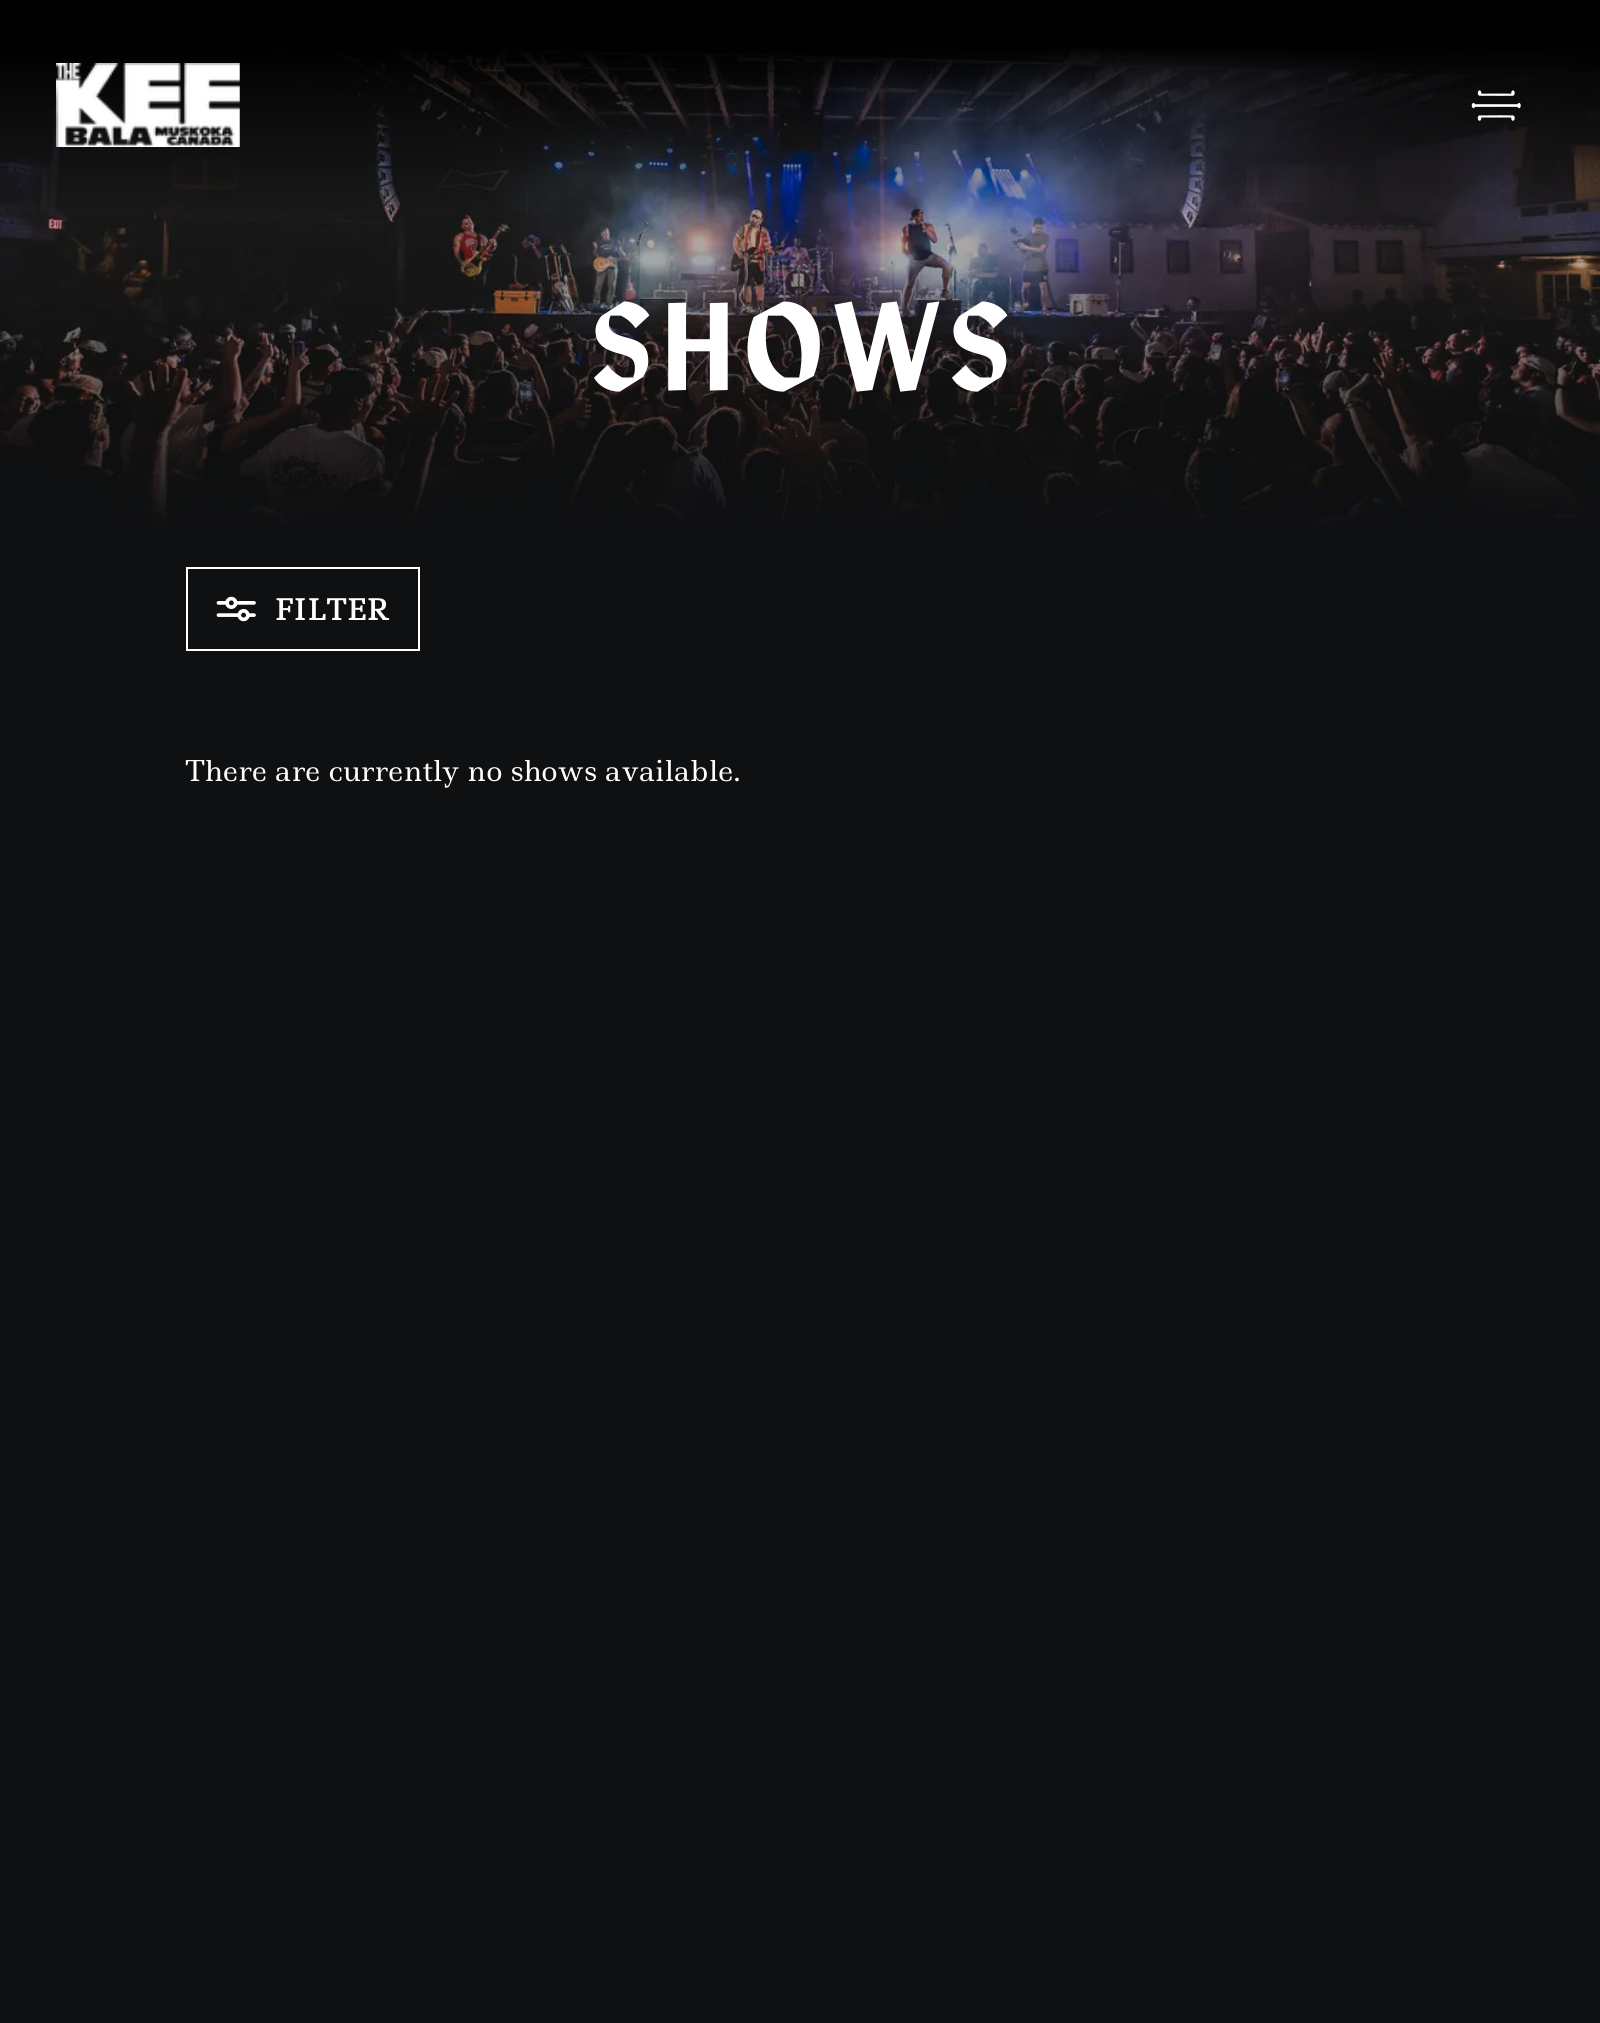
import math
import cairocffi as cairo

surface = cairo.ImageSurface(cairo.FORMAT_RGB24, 1600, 2023)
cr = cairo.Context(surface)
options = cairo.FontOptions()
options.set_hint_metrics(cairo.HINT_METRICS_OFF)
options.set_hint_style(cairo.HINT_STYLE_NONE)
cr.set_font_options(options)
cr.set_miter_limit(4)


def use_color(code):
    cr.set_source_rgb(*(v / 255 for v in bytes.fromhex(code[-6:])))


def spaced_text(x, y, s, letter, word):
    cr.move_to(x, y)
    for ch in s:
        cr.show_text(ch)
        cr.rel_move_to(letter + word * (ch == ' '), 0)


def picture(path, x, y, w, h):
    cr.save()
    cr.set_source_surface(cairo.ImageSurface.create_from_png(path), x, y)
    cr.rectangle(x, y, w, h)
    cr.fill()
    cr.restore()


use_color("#0e1012")
cr.paint()
picture("img3.png", 0, 0, 1600, 525)
picture("img1.png", 56, 63, 184, 84)
picture("img2.png", 1471, 90, 50, 31)
cr.select_font_face("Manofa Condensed")
cr.set_font_size(119)
use_color("#ffffff")
spaced_text(590, 390, "SHOWS", 6, 0)
cr.rectangle(187, 568, 232, 82)
cr.stroke()
picture("img4.png", 216, 596, 40, 26)
cr.select_font_face("Ledger", cairo.FONT_SLANT_NORMAL, cairo.FONT_WEIGHT_BOLD)
cr.set_font_size(28)
cr.move_to(274, 620)
cr.show_text("FILTER")
cr.select_font_face("Ledger")
cr.move_to(185, 781)
cr.show_text("There are currently no shows available.")
surface.write_to_png("result.png")
